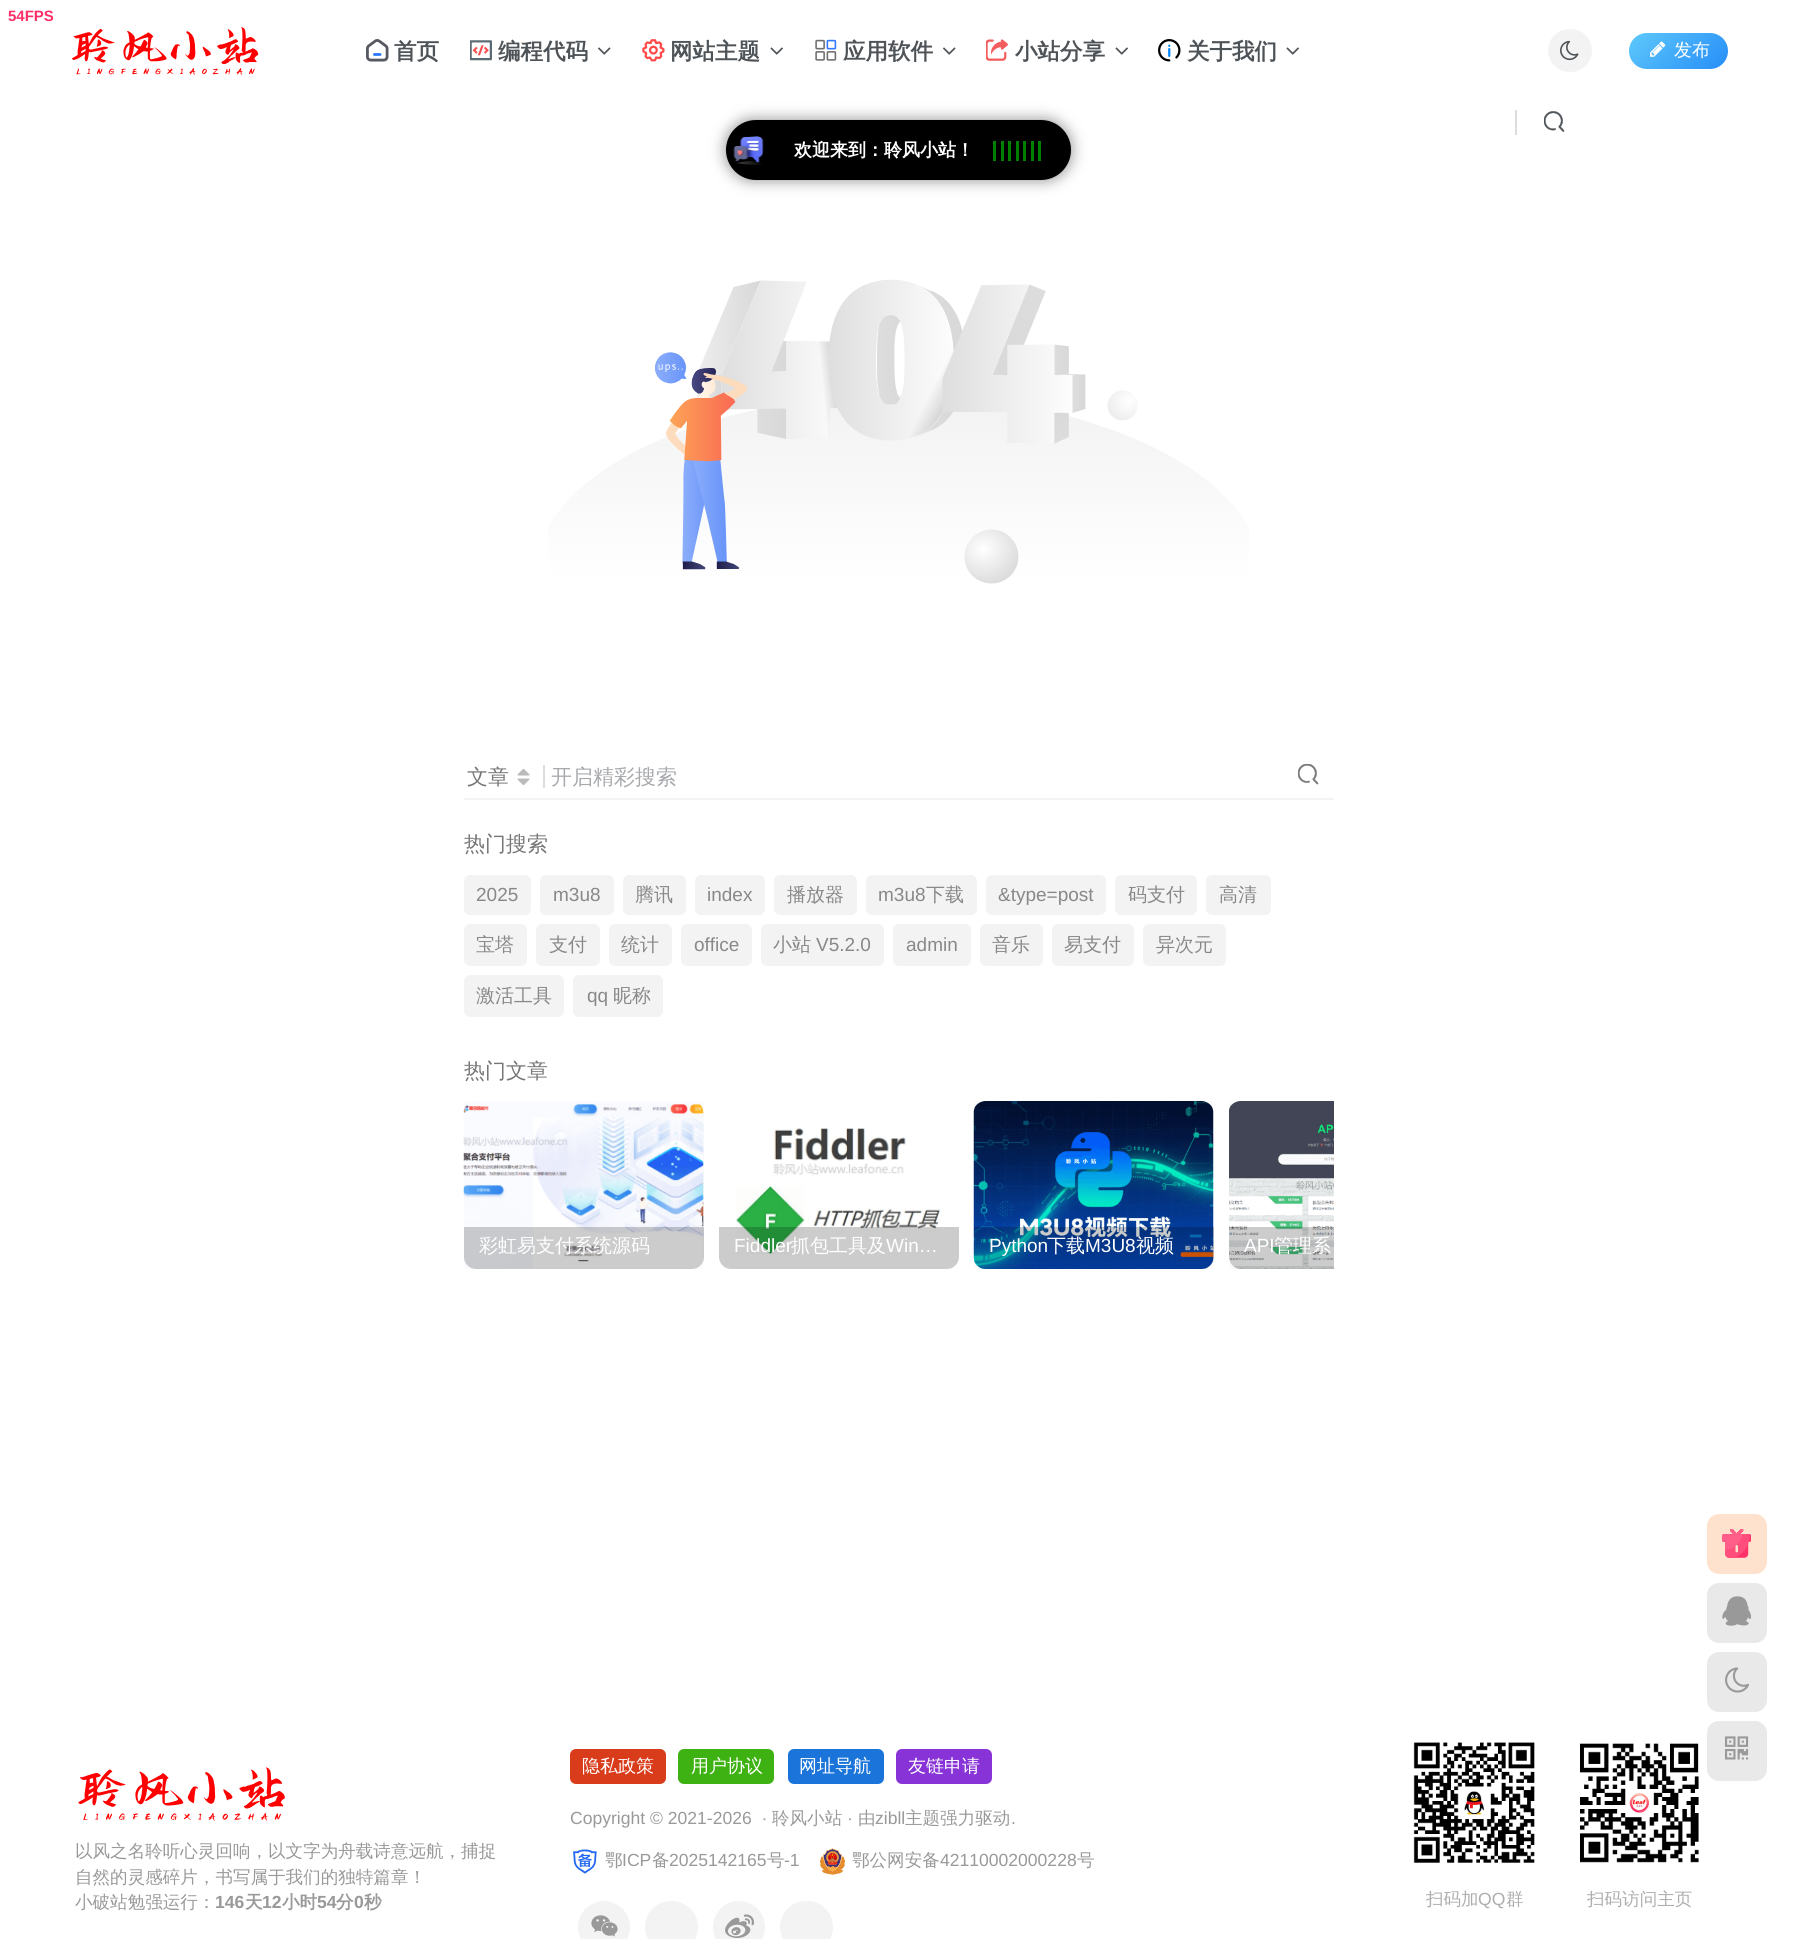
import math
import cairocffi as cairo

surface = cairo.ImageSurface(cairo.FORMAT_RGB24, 1797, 1939)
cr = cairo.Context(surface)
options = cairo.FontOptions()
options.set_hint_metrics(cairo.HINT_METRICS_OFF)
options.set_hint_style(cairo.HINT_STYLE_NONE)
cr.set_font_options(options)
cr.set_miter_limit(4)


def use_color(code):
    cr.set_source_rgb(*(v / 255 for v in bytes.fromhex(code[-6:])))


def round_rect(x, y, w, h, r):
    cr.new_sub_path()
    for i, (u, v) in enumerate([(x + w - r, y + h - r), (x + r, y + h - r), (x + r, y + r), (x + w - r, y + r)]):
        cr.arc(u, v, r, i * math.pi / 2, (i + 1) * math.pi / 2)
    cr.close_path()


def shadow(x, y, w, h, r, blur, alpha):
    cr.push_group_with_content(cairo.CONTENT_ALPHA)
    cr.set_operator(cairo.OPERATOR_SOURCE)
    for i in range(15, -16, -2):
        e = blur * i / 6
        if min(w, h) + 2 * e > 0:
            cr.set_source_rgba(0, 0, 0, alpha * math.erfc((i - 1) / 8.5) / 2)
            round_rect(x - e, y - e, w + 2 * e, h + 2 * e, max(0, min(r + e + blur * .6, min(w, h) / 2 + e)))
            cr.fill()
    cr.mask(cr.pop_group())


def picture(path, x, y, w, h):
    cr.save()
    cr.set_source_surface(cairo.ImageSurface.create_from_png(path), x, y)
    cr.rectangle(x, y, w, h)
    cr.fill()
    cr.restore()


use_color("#ffffff")
cr.paint()
cr.select_font_face("Liberation Sans", cairo.FONT_SLANT_NORMAL, cairo.FONT_WEIGHT_BOLD)
cr.set_font_size(15)
use_color("#ff2f67")
cr.move_to(8, 21)
cr.show_text("54FPS")
picture("img1.png", 72, 27, 187, 49)
picture("img2.png", 366, 39, 23, 23)
cr.select_font_face("WenQuanYi Zen Hei", cairo.FONT_SLANT_NORMAL, cairo.FONT_WEIGHT_BOLD)
cr.set_font_size(22.5)
use_color("#4e5358")
cr.move_to(394, 59)
cr.show_text("首页")
picture("img3.png", 470, 40, 22, 21)
cr.move_to(498, 59)
cr.show_text("编程代码")
picture("img4.png", 598, 47, 13, 8)
picture("img5.png", 642, 39, 23, 23)
cr.move_to(670, 59)
cr.show_text("网站主题")
picture("img6.png", 770, 47, 13, 8)
picture("img7.png", 815, 39, 22, 22)
cr.move_to(843, 59)
cr.show_text("应用软件")
picture("img4.png", 943, 47, 13, 8)
picture("img8.png", 986, 39, 22, 22)
cr.move_to(1015, 59)
cr.show_text("小站分享")
picture("img6.png", 1115, 47, 13, 8)
picture("img9.png", 1158, 39, 23, 23)
cr.move_to(1187, 59)
cr.show_text("关于我们")
picture("img6.png", 1286, 47, 13, 8)
use_color("#f3f3f3")
round_rect(1548, 29, 44, 43, 21.5)
cr.fill()
picture("img10.png", 1560, 40, 19, 21)
gradient = cairo.LinearGradient(1645, 17, 1712, 85)
gradient.add_color_stop_rgba(0.1, 0.349, 0.765, 0.984, 1)
gradient.add_color_stop_rgba(1, 0.149, 0.553, 0.969, 1)
cr.set_source(gradient)
round_rect(1629, 33, 99, 36, 18)
cr.fill()
picture("img11.png", 1650, 41, 16, 16)
cr.select_font_face("WenQuanYi Zen Hei Medium")
cr.set_font_size(18)
use_color("#ffffff")
cr.move_to(1674, 56)
cr.show_text("发布")
use_color("#dcddde")
cr.rectangle(1515, 110, 2, 25)
cr.fill()
picture("img12.png", 1544, 111, 21, 21)
use_color("#000000")
shadow(726, 120, 345, 60, 30, 7.5, 0.45)
use_color("#000000")
round_rect(726, 120, 345, 60, 30)
cr.fill()
picture("img13.png", 733, 136, 31, 29)
cr.select_font_face("WenQuanYi Zen Hei", cairo.FONT_SLANT_NORMAL, cairo.FONT_WEIGHT_BOLD)
use_color("#ffffff")
cr.move_to(794, 156)
cr.show_text("欢迎来到：聆风小站！")
use_color("#008000")
cr.rectangle(993, 141, 3, 20)
cr.fill()
cr.rectangle(1001, 141, 3, 20)
cr.fill()
cr.rectangle(1008, 141, 3, 20)
cr.fill()
cr.rectangle(1016, 141, 3, 20)
cr.fill()
cr.rectangle(1023, 141, 3, 20)
cr.fill()
cr.rectangle(1031, 141, 3, 20)
cr.fill()
cr.rectangle(1038, 141, 3, 20)
cr.fill()
picture("img14.png", 548, 279, 701, 305)
cr.select_font_face("WenQuanYi Zen Hei Medium")
cr.set_font_size(21)
use_color("#777777")
cr.move_to(467, 784)
cr.show_text("文章")
picture("img15.png", 517, 768, 13, 18)
use_color("#dcddde")
cr.rectangle(543, 765, 2, 23)
cr.fill()
use_color("#a7a9ac")
cr.move_to(551, 784)
cr.show_text("开启精彩搜索")
picture("img16.png", 1298, 764, 21, 21)
use_color("#f3f3f3")
cr.rectangle(464, 798, 870, 2)
cr.fill()
use_color("#777777")
cr.move_to(464, 851)
cr.show_text("热门搜索")
use_color("#f3f3f3")
round_rect(464, 875, 67, 40, 6)
cr.fill()
cr.select_font_face("Liberation Sans")
cr.set_font_size(19)
use_color("#888888")
cr.move_to(476, 901)
cr.show_text("2025")
use_color("#f3f3f3")
round_rect(540, 875, 74, 40, 6)
cr.fill()
use_color("#888888")
cr.move_to(553, 901)
cr.show_text("m3u8")
use_color("#f3f3f3")
round_rect(623, 875, 63, 40, 6)
cr.fill()
cr.select_font_face("WenQuanYi Zen Hei Medium")
use_color("#888888")
cr.move_to(635, 901)
cr.show_text("腾讯")
use_color("#f3f3f3")
round_rect(695, 875, 70, 40, 6)
cr.fill()
cr.select_font_face("Liberation Sans")
use_color("#888888")
cr.move_to(707, 901)
cr.show_text("index")
use_color("#f3f3f3")
round_rect(774, 875, 83, 40, 6)
cr.fill()
cr.select_font_face("WenQuanYi Zen Hei Medium")
use_color("#888888")
cr.move_to(787, 901)
cr.show_text("播放器")
use_color("#f3f3f3")
round_rect(866, 875, 111, 40, 6)
cr.fill()
cr.select_font_face("Liberation Sans")
use_color("#888888")
cr.move_to(878, 901)
cr.show_text("m3u8")
cr.select_font_face("WenQuanYi Zen Hei Medium")
cr.move_to(926, 901)
cr.show_text("下载")
use_color("#f3f3f3")
round_rect(986, 875, 120, 40, 6)
cr.fill()
cr.select_font_face("Liberation Sans")
use_color("#888888")
cr.move_to(998, 901)
cr.show_text("&type=post")
use_color("#f3f3f3")
round_rect(1115, 875, 82, 40, 6)
cr.fill()
cr.select_font_face("WenQuanYi Zen Hei Medium")
use_color("#888888")
cr.move_to(1128, 901)
cr.show_text("码支付")
use_color("#f3f3f3")
round_rect(1206, 875, 65, 40, 6)
cr.fill()
use_color("#888888")
cr.move_to(1219, 901)
cr.show_text("高清")
use_color("#f3f3f3")
round_rect(464, 924, 63, 42, 6)
cr.fill()
use_color("#888888")
cr.move_to(476, 951)
cr.show_text("宝塔")
use_color("#f3f3f3")
round_rect(536, 924, 64, 42, 6)
cr.fill()
use_color("#888888")
cr.move_to(549, 951)
cr.show_text("支付")
use_color("#f3f3f3")
round_rect(609, 924, 63, 42, 6)
cr.fill()
use_color("#888888")
cr.move_to(621, 951)
cr.show_text("统计")
use_color("#f3f3f3")
round_rect(681, 924, 71, 42, 6)
cr.fill()
cr.select_font_face("Liberation Sans")
use_color("#888888")
cr.move_to(694, 951)
cr.show_text("office")
use_color("#f3f3f3")
round_rect(761, 924, 123, 42, 6)
cr.fill()
cr.select_font_face("WenQuanYi Zen Hei Medium")
use_color("#888888")
cr.move_to(773, 951)
cr.show_text("小站")
cr.select_font_face("Liberation Sans")
cr.move_to(816, 951)
cr.show_text("V5.2.0")
use_color("#f3f3f3")
round_rect(893, 924, 78, 42, 6)
cr.fill()
use_color("#888888")
cr.move_to(906, 951)
cr.show_text("admin")
use_color("#f3f3f3")
round_rect(980, 924, 63, 42, 6)
cr.fill()
cr.select_font_face("WenQuanYi Zen Hei Medium")
use_color("#888888")
cr.move_to(992, 951)
cr.show_text("音乐")
use_color("#f3f3f3")
round_rect(1052, 924, 82, 42, 6)
cr.fill()
use_color("#888888")
cr.move_to(1064, 951)
cr.show_text("易支付")
use_color("#f3f3f3")
round_rect(1143, 924, 83, 42, 6)
cr.fill()
use_color("#888888")
cr.move_to(1156, 951)
cr.show_text("异次元")
use_color("#f3f3f3")
round_rect(464, 975, 100, 42, 6)
cr.fill()
use_color("#888888")
cr.move_to(476, 1002)
cr.show_text("激活工具")
use_color("#f3f3f3")
round_rect(573, 975, 90, 42, 6)
cr.fill()
cr.select_font_face("Liberation Sans")
use_color("#888888")
cr.move_to(587, 1002)
cr.show_text("qq")
cr.select_font_face("WenQuanYi Zen Hei Medium")
cr.move_to(613, 1002)
cr.show_text("昵称")
cr.set_font_size(21)
use_color("#777777")
cr.move_to(464, 1078)
cr.show_text("热门文章")
cr.save()
cr.rectangle(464, 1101, 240, 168)
cr.clip()
use_color("#747474")
shadow(464, 1101, 240, 168, 12, 7.5, 0.08)
cr.restore()
picture("img17.png", 463, 1101, 241, 168)
cr.set_source_rgba(0, 0, 0, 0.2)
cr.new_path()
cr.move_to(464, 1227)
cr.line_to(704, 1227)
cr.line_to(704, 1257)
cr.curve_to(704, 1263.5, 698.5, 1269, 692, 1269)
cr.line_to(476, 1269)
cr.curve_to(469.5, 1269, 464, 1263.5, 464, 1257)
cr.close_path()
cr.fill()
cr.set_font_size(19)
use_color("#ffffff")
cr.move_to(479, 1252)
cr.show_text("彩虹易支付系统源码")
picture("img18.png", 736, 1128, 204, 127)
cr.set_source_rgba(0, 0, 0, 0.2)
cr.new_path()
cr.move_to(719, 1227)
cr.line_to(959, 1227)
cr.line_to(959, 1257)
cr.curve_to(959, 1263.5, 953.5, 1269, 947, 1269)
cr.line_to(731, 1269)
cr.curve_to(724.5, 1269, 719, 1263.5, 719, 1257)
cr.close_path()
cr.fill()
cr.select_font_face("Liberation Sans")
use_color("#ffffff")
cr.move_to(734, 1252)
cr.show_text("Fiddler")
cr.select_font_face("WenQuanYi Zen Hei Medium")
cr.move_to(791, 1252)
cr.show_text("抓包工具及")
cr.select_font_face("Liberation Sans")
cr.move_to(886, 1252)
cr.show_text("Win…")
cr.save()
cr.rectangle(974, 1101, 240, 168)
cr.clip()
use_color("#747474")
shadow(974, 1101, 240, 168, 12, 7.5, 0.08)
cr.restore()
picture("img19.png", 973, 1101, 241, 168)
cr.set_source_rgba(0, 0, 0, 0.2)
cr.new_path()
cr.move_to(974, 1227)
cr.line_to(1214, 1227)
cr.line_to(1214, 1257)
cr.curve_to(1214, 1263.5, 1208.5, 1269, 1202, 1269)
cr.line_to(986, 1269)
cr.curve_to(979.5, 1269, 974, 1263.5, 974, 1257)
cr.close_path()
cr.fill()
use_color("#ffffff")
cr.move_to(989, 1252)
cr.show_text("Python")
cr.select_font_face("WenQuanYi Zen Hei Medium")
cr.move_to(1047, 1252)
cr.show_text("下载")
cr.select_font_face("Liberation Sans")
cr.move_to(1085, 1252)
cr.show_text("M3U8")
cr.select_font_face("WenQuanYi Zen Hei Medium")
cr.move_to(1136, 1252)
cr.show_text("视频")
cr.save()
cr.rectangle(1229, 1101, 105, 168)
cr.clip()
use_color("#747474")
shadow(1229, 1101, 240, 168, 12, 7.5, 0.08)
cr.restore()
picture("img20.png", 1229, 1101, 105, 168)
cr.set_source_rgba(0, 0, 0, 0.2)
cr.new_path()
cr.move_to(1229, 1227)
cr.line_to(1334, 1227)
cr.line_to(1334, 1269)
cr.line_to(1241, 1269)
cr.curve_to(1234.5, 1269, 1229, 1263.5, 1229, 1257)
cr.close_path()
cr.fill()
cr.select_font_face("Liberation Sans")
use_color("#ffffff")
cr.move_to(1244, 1252)
cr.show_text("API")
cr.select_font_face("WenQuanYi Zen Hei Medium")
cr.move_to(1274, 1252)
cr.show_text("管理系")
use_color("#ffe2cd")
round_rect(1707, 1514, 60, 60, 12)
cr.fill()
picture("img21.png", 1722, 1529, 29, 29)
use_color("#e9e9e9")
round_rect(1707, 1583, 60, 60, 12)
cr.fill()
picture("img22.png", 1722, 1596, 30, 30)
round_rect(1707, 1652, 60, 60, 12)
cr.fill()
picture("img23.png", 1725, 1667, 24, 26)
round_rect(1707, 1721, 60, 60, 12)
cr.fill()
picture("img24.png", 1725, 1736, 24, 24)
use_color("#d93c1b")
round_rect(570, 1749, 96, 35, 6)
cr.fill()
cr.set_font_size(18)
use_color("#ffffff")
cr.move_to(582, 1772)
cr.show_text("隐私政策")
use_color("#3eb213")
round_rect(678, 1749, 96, 35, 6)
cr.fill()
use_color("#ffffff")
cr.move_to(691, 1772)
cr.show_text("用户协议")
use_color("#1b74d9")
round_rect(788, 1749, 96, 35, 6)
cr.fill()
use_color("#ffffff")
cr.move_to(799, 1772)
cr.show_text("网址导航")
use_color("#8833d7")
round_rect(896, 1749, 96, 35, 6)
cr.fill()
use_color("#ffffff")
cr.move_to(908, 1772)
cr.show_text("友链申请")
cr.select_font_face("Liberation Sans")
cr.set_font_size(17.55)
use_color("#999999")
cr.move_to(570, 1824)
cr.show_text("Copyright © 2021-2026  ·")
cr.select_font_face("WenQuanYi Zen Hei Medium")
cr.move_to(772, 1824)
cr.show_text("聆风小站")
cr.select_font_face("Liberation Sans")
cr.move_to(847, 1824)
cr.show_text("·")
cr.select_font_face("WenQuanYi Zen Hei Medium")
cr.move_to(858, 1824)
cr.show_text("由")
cr.select_font_face("Liberation Sans")
cr.move_to(875, 1824)
cr.show_text("zibll")
cr.select_font_face("WenQuanYi Zen Hei Medium")
cr.move_to(905, 1824)
cr.show_text("主题强力驱动")
cr.select_font_face("Liberation Sans")
cr.move_to(1011, 1824)
cr.show_text(".")
picture("img25.png", 573, 1849, 24, 25)
cr.select_font_face("WenQuanYi Zen Hei Medium")
cr.move_to(605, 1866)
cr.show_text("鄂")
cr.select_font_face("Liberation Sans")
cr.move_to(622, 1866)
cr.show_text("ICP")
cr.select_font_face("WenQuanYi Zen Hei Medium")
cr.move_to(652, 1866)
cr.show_text("备")
cr.select_font_face("Liberation Sans")
cr.move_to(669, 1866)
cr.show_text("2025142165")
cr.select_font_face("WenQuanYi Zen Hei Medium")
cr.move_to(767, 1866)
cr.show_text("号")
cr.select_font_face("Liberation Sans")
cr.move_to(784, 1866)
cr.show_text("-1")
picture("img26.png", 820, 1848, 25, 27)
cr.select_font_face("WenQuanYi Zen Hei Medium")
cr.move_to(852, 1866)
cr.show_text("鄂公网安备")
cr.select_font_face("Liberation Sans")
cr.move_to(940, 1866)
cr.show_text("42110002000228")
cr.select_font_face("WenQuanYi Zen Hei Medium")
cr.move_to(1077, 1866)
cr.show_text("号")
use_color("#f3f3f3")
cr.new_path()
cr.arc(604, 1927, 26, 0, 2 * math.pi)
cr.fill()
picture("img27.png", 591, 1915, 27, 22)
round_rect(645, 1901, 53, 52, 26)
cr.fill()
cr.arc(739, 1927, 26, 0, 2 * math.pi)
cr.fill()
picture("img28.png", 725, 1914, 29, 24)
round_rect(780, 1901, 53, 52, 26)
cr.fill()
picture("img29.png", 78, 1767, 207, 54)
use_color("#999999")
cr.move_to(75, 1857)
cr.show_text("以风之名聆听心灵回响，以文字为舟载诗意远航，捕捉")
cr.move_to(75, 1883)
cr.show_text("自然的灵感碎片，书写属于我们的独特篇章！")
cr.move_to(75, 1908)
cr.show_text("小破站勉强运行：")
cr.select_font_face("Liberation Sans", cairo.FONT_SLANT_NORMAL, cairo.FONT_WEIGHT_BOLD)
cr.move_to(215, 1908)
cr.show_text("146")
cr.select_font_face("WenQuanYi Zen Hei", cairo.FONT_SLANT_NORMAL, cairo.FONT_WEIGHT_BOLD)
cr.move_to(245, 1908)
cr.show_text("天")
cr.select_font_face("Liberation Sans", cairo.FONT_SLANT_NORMAL, cairo.FONT_WEIGHT_BOLD)
cr.move_to(262, 1908)
cr.show_text("12")
cr.select_font_face("WenQuanYi Zen Hei", cairo.FONT_SLANT_NORMAL, cairo.FONT_WEIGHT_BOLD)
cr.move_to(282, 1908)
cr.show_text("小时")
cr.select_font_face("Liberation Sans", cairo.FONT_SLANT_NORMAL, cairo.FONT_WEIGHT_BOLD)
cr.move_to(317, 1908)
cr.show_text("54")
cr.select_font_face("WenQuanYi Zen Hei", cairo.FONT_SLANT_NORMAL, cairo.FONT_WEIGHT_BOLD)
cr.move_to(336, 1908)
cr.show_text("分")
cr.select_font_face("Liberation Sans", cairo.FONT_SLANT_NORMAL, cairo.FONT_WEIGHT_BOLD)
cr.move_to(354, 1908)
cr.show_text("0")
cr.select_font_face("WenQuanYi Zen Hei", cairo.FONT_SLANT_NORMAL, cairo.FONT_WEIGHT_BOLD)
cr.move_to(364, 1908)
cr.show_text("秒")
picture("img30.png", 1413, 1742, 122, 121)
cr.select_font_face("WenQuanYi Zen Hei Medium")
use_color("#adadad")
cr.move_to(1426, 1905)
cr.show_text("扫码加")
cr.select_font_face("Liberation Sans")
cr.move_to(1478, 1905)
cr.show_text("QQ")
cr.select_font_face("WenQuanYi Zen Hei Medium")
cr.move_to(1506, 1905)
cr.show_text("群")
picture("img31.png", 1580, 1743, 119, 120)
cr.move_to(1587, 1905)
cr.show_text("扫码访问主页")
surface.write_to_png("result.png")
